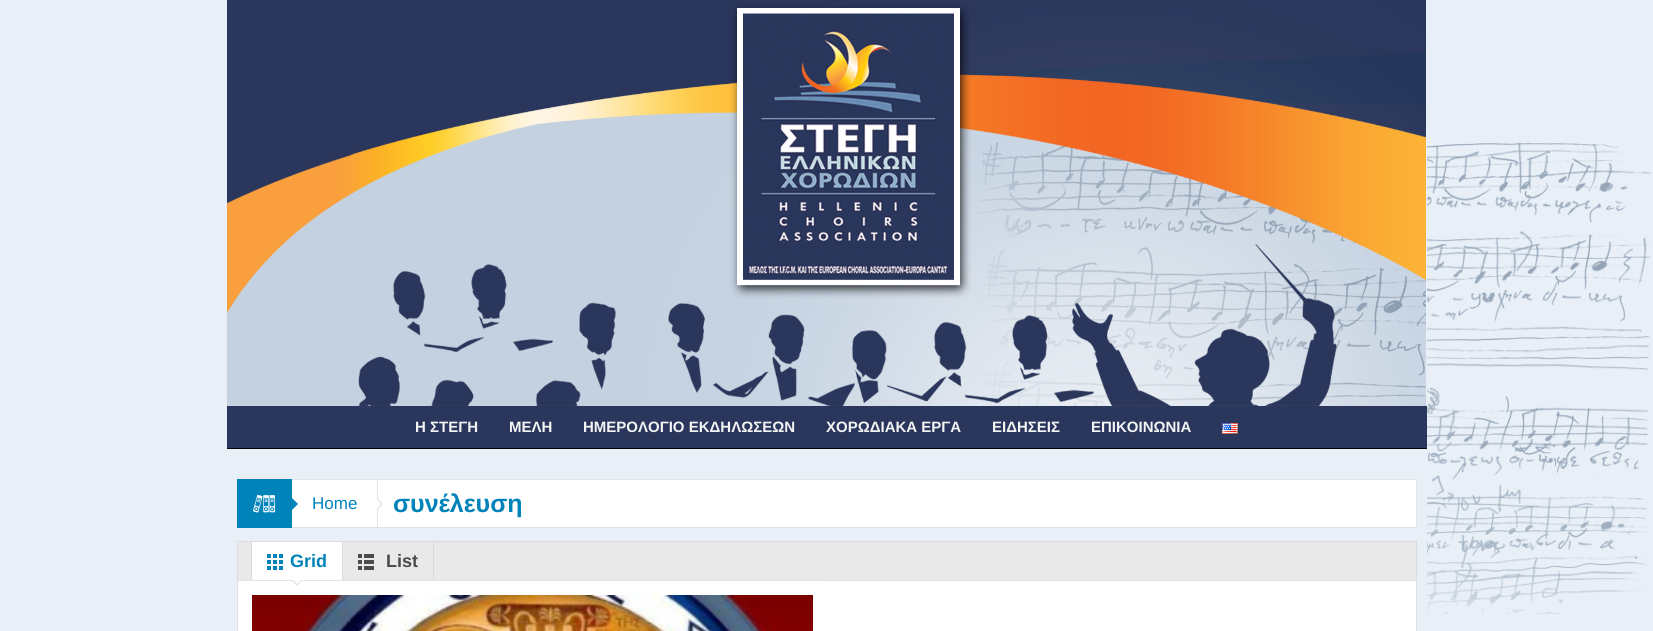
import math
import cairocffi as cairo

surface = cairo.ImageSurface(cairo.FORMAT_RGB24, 1653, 631)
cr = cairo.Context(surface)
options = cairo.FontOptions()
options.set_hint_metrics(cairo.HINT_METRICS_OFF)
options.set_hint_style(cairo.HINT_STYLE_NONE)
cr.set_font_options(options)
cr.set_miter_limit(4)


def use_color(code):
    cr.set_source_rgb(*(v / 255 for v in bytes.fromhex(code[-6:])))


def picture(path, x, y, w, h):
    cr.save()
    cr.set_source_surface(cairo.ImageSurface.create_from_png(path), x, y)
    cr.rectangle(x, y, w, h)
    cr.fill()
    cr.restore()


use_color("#e8eff7")
cr.paint()
picture("img1.png", 1427, 142, 225, 472)
picture("img2.png", 227, 0, 1199, 406)
use_color("#2a365c")
cr.rectangle(227, 406, 1200, 42)
cr.fill()
use_color("#000000")
cr.rectangle(227, 448, 1200, 1)
cr.fill()
cr.select_font_face("Liberation Sans", cairo.FONT_SLANT_NORMAL, cairo.FONT_WEIGHT_BOLD)
cr.set_font_size(15)
use_color("#f4f4f4")
cr.move_to(415, 432)
cr.show_text("Η ΣΤΕΓΗ")
cr.move_to(509, 432)
cr.show_text("ΜΕΛΗ")
cr.move_to(583, 432)
cr.show_text("ΗΜΕΡΟΛΟΓΙΟ ΕΚΔΗΛΩΣΕΩΝ")
cr.move_to(826, 432)
cr.show_text("ΧΟΡΩΔΙΑΚΑ ΕΡΓΑ")
cr.move_to(992, 432)
cr.show_text("ΕΙΔΗΣΕΙΣ")
cr.move_to(1091, 432)
cr.show_text("ΕΠΙΚΟΙΝΩΝΙΑ")
picture("img3.png", 1222, 423, 16, 11)
use_color("#ffffff")
cr.rectangle(292, 480, 1124, 47)
cr.fill()
use_color("#e5e5e5")
cr.rectangle(292, 479, 1125, 1)
cr.fill()
cr.rectangle(1416, 479, 1, 49)
cr.fill()
use_color("#e1e1e1")
cr.rectangle(292, 527, 1125, 1)
cr.fill()
use_color("#0083b9")
cr.rectangle(237, 479, 55, 49)
cr.fill()
picture("img4.png", 253, 494, 22, 19)
cr.new_path()
cr.move_to(292, 510)
cr.line_to(292, 498)
cr.line_to(298, 504)
cr.close_path()
cr.fill()
use_color("#e5e5e5")
cr.rectangle(377, 480, 1, 47)
cr.fill()
cr.select_font_face("Liberation Sans")
cr.set_font_size(17)
use_color("#0083b9")
cr.move_to(312, 509)
cr.show_text("Home")
use_color("#e5e5e5")
cr.new_path()
cr.move_to(377, 510)
cr.line_to(377, 498)
cr.line_to(383, 504)
cr.close_path()
cr.fill()
use_color("#ffffff")
cr.new_path()
cr.move_to(377, 508)
cr.line_to(377, 500)
cr.line_to(381, 504)
cr.close_path()
cr.fill()
cr.select_font_face("Liberation Sans", cairo.FONT_SLANT_NORMAL, cairo.FONT_WEIGHT_BOLD)
cr.set_font_size(25)
use_color("#0083b9")
cr.move_to(393, 512)
cr.show_text("συνέλευση")
use_color("#ffffff")
cr.rectangle(238, 581, 1178, 50)
cr.fill()
cr.rectangle(237.5, 541.5, 1179, 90)
use_color("#e1e1e1")
cr.set_line_width(1)
cr.stroke()
use_color("#e9e9e9")
cr.rectangle(237.5, 541.5, 1179, 39)
cr.fill_preserve()
use_color("#dbdbdb")
cr.stroke()
use_color("#ffffff")
cr.rectangle(252, 542, 90, 38)
cr.fill()
use_color("#dbdbdb")
cr.rectangle(251, 542, 1, 38)
cr.fill()
picture("img5.png", 267, 554, 16, 16)
cr.set_font_size(18)
use_color("#0083b9")
cr.move_to(290, 567)
cr.show_text("Grid")
use_color("#e4e4e4")
cr.rectangle(238, 580, 589, 1)
cr.fill()
use_color("#e5e5e5")
cr.new_path()
cr.move_to(291, 580)
cr.line_to(303, 580)
cr.line_to(297, 586)
cr.close_path()
cr.fill()
use_color("#ffffff")
cr.new_path()
cr.move_to(293, 580)
cr.line_to(301, 580)
cr.line_to(297, 584)
cr.close_path()
cr.fill()
use_color("#dbdbdb")
cr.rectangle(433, 542, 1, 38)
cr.fill()
cr.rectangle(342, 542, 1, 38)
cr.fill()
picture("img6.png", 358, 554, 16, 16)
use_color("#4b4b4b")
cr.move_to(386, 567)
cr.show_text("List")
use_color("#e1e1e1")
cr.rectangle(827, 580, 589, 1)
cr.fill()
picture("img7.png", 252, 595, 561, 36)
surface.write_to_png("result.png")
